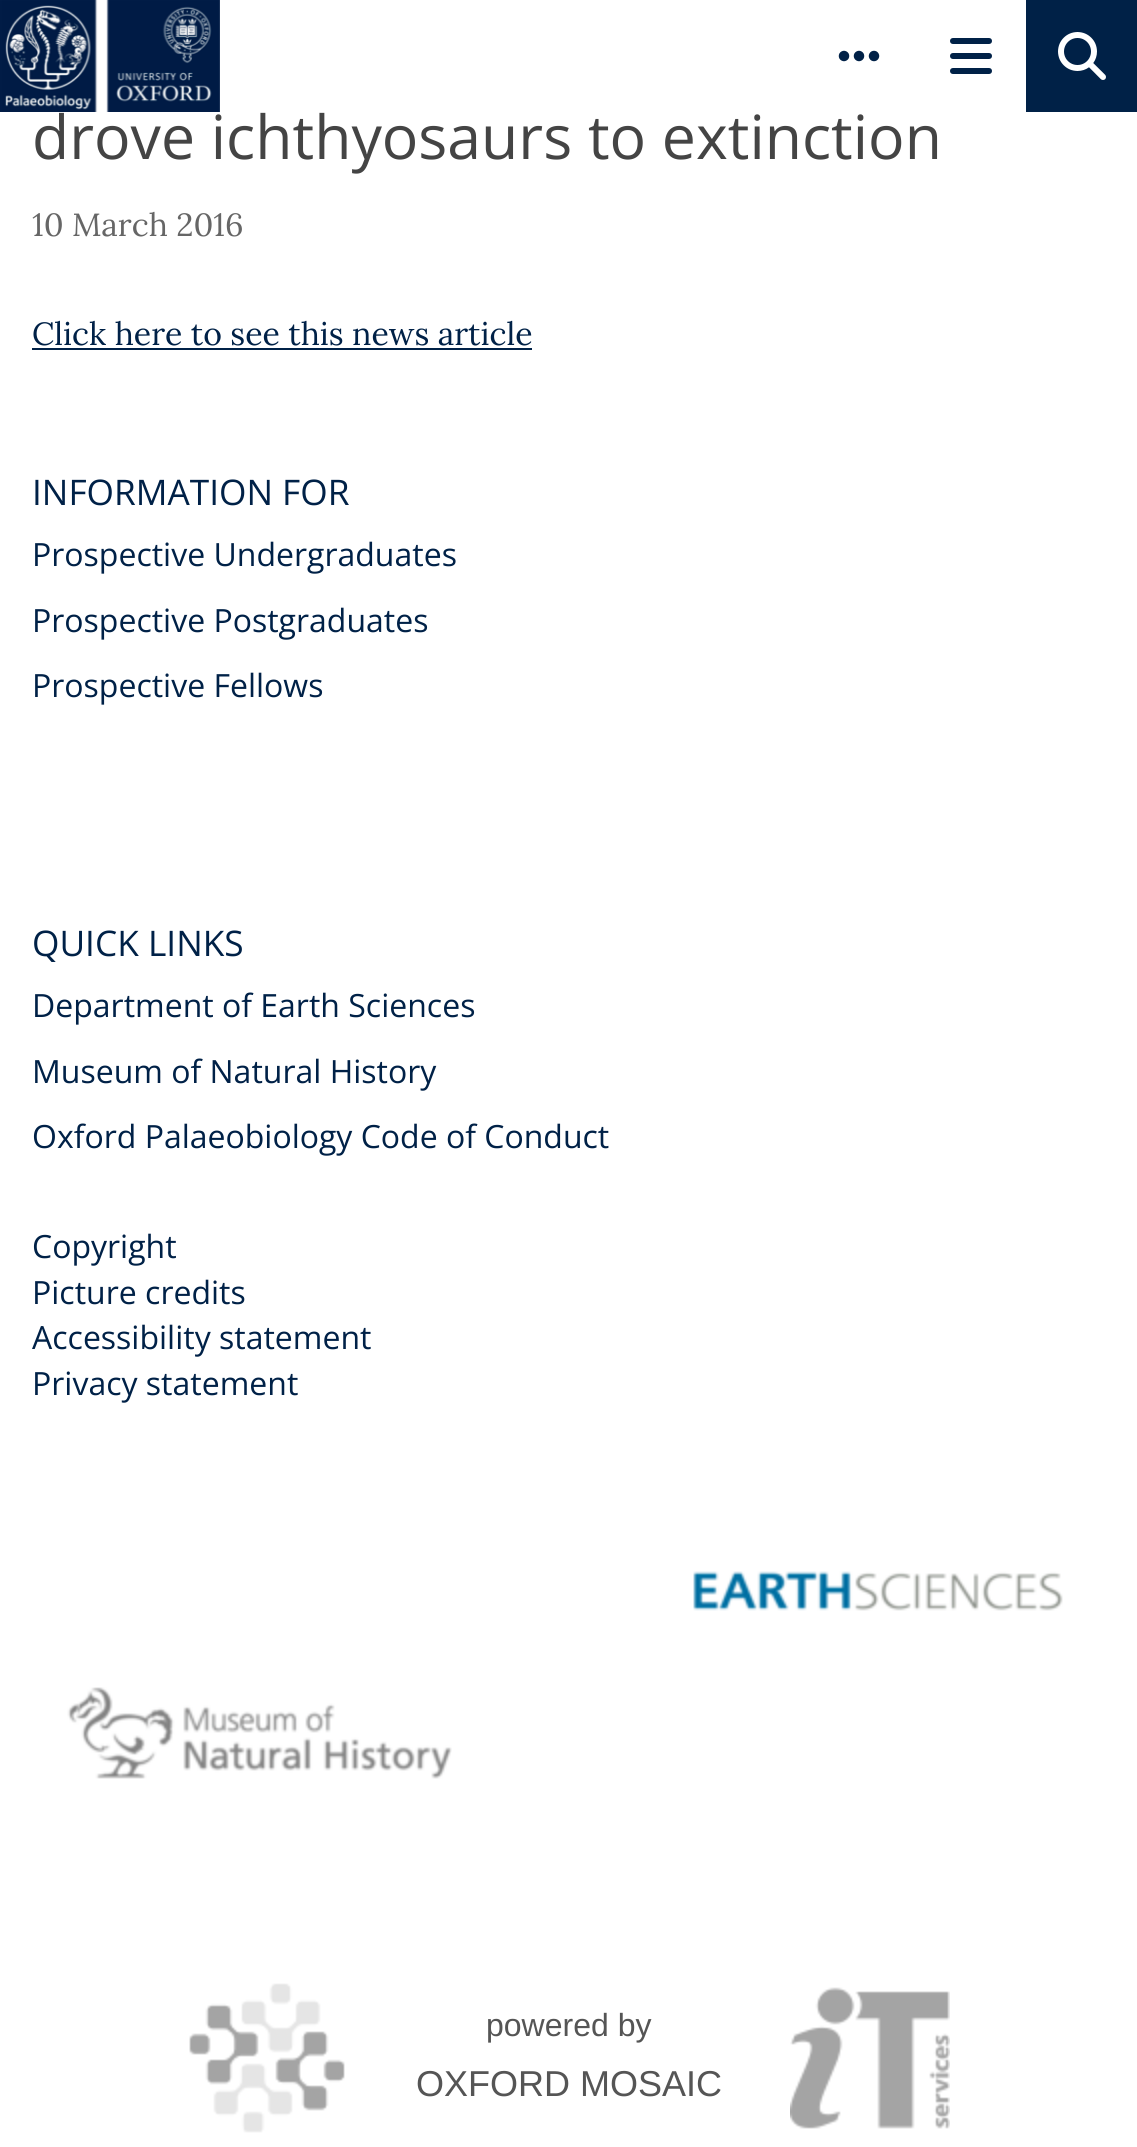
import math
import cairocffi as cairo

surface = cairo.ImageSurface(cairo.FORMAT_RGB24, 1137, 2147)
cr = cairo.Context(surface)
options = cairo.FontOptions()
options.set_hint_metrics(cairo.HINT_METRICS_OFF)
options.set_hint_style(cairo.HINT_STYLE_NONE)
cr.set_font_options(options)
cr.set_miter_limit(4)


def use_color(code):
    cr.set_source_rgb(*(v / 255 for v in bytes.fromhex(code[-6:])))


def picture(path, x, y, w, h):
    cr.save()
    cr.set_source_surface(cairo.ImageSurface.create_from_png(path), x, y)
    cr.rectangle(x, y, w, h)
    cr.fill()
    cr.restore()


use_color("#ffffff")
cr.paint()
picture("img1.png", 0, 0, 220, 112)
picture("img2.png", 838, 50, 42, 12)
picture("img3.png", 950, 38, 42, 36)
use_color("#002147")
cr.rectangle(1026, 0, 111, 112)
cr.fill()
picture("img4.png", 1058, 32, 48, 48)
cr.select_font_face("Open Sans")
cr.set_font_size(60.75)
use_color("#444444")
cr.move_to(32, 159)
cr.show_text("drove ichthyosaurs to extinction")
cr.select_font_face("Lora")
cr.set_font_size(32)
use_color("#666666")
cr.move_to(32, 236)
cr.show_text("10 March 2016")
use_color("#002147")
cr.move_to(32, 345)
cr.show_text("Click here to see this news article")
cr.rectangle(32, 348, 500, 2)
cr.fill()
cr.select_font_face("Open Sans")
cr.set_font_size(35.25)
cr.move_to(32, 505)
cr.show_text("INFORMATION FOR")
cr.set_font_size(32)
cr.move_to(32, 566)
cr.show_text("Prospective Undergraduates")
cr.move_to(32, 632)
cr.show_text("Prospective Postgraduates")
cr.move_to(32, 697)
cr.show_text("Prospective Fellows")
cr.set_font_size(35.25)
cr.move_to(32, 956)
cr.show_text("QUICK LINKS")
cr.set_font_size(32)
cr.move_to(32, 1017)
cr.show_text("Department of Earth Sciences")
cr.move_to(32, 1083)
cr.show_text("Museum of Natural History")
cr.move_to(32, 1148)
cr.show_text("Oxford Palaeobiology Code of Conduct")
cr.move_to(32, 1258)
cr.show_text("Copyright")
cr.move_to(32, 1304)
cr.show_text("Picture credits")
cr.move_to(32, 1349)
cr.show_text("Accessibility statement")
cr.move_to(32, 1395)
cr.show_text("Privacy statement")
picture("img5.png", 693, 1571, 370, 40)
picture("img6.png", 67, 1687, 385, 92)
picture("img7.png", 189, 1983, 156, 150)
cr.select_font_face("Liberation Sans")
use_color("#555555")
cr.move_to(486, 2036)
cr.show_text("powered by")
cr.set_font_size(36)
cr.move_to(416, 2096)
cr.show_text("OXFORD MOSAIC")
picture("img8.png", 790, 1987, 160, 142)
surface.write_to_png("result.png")
